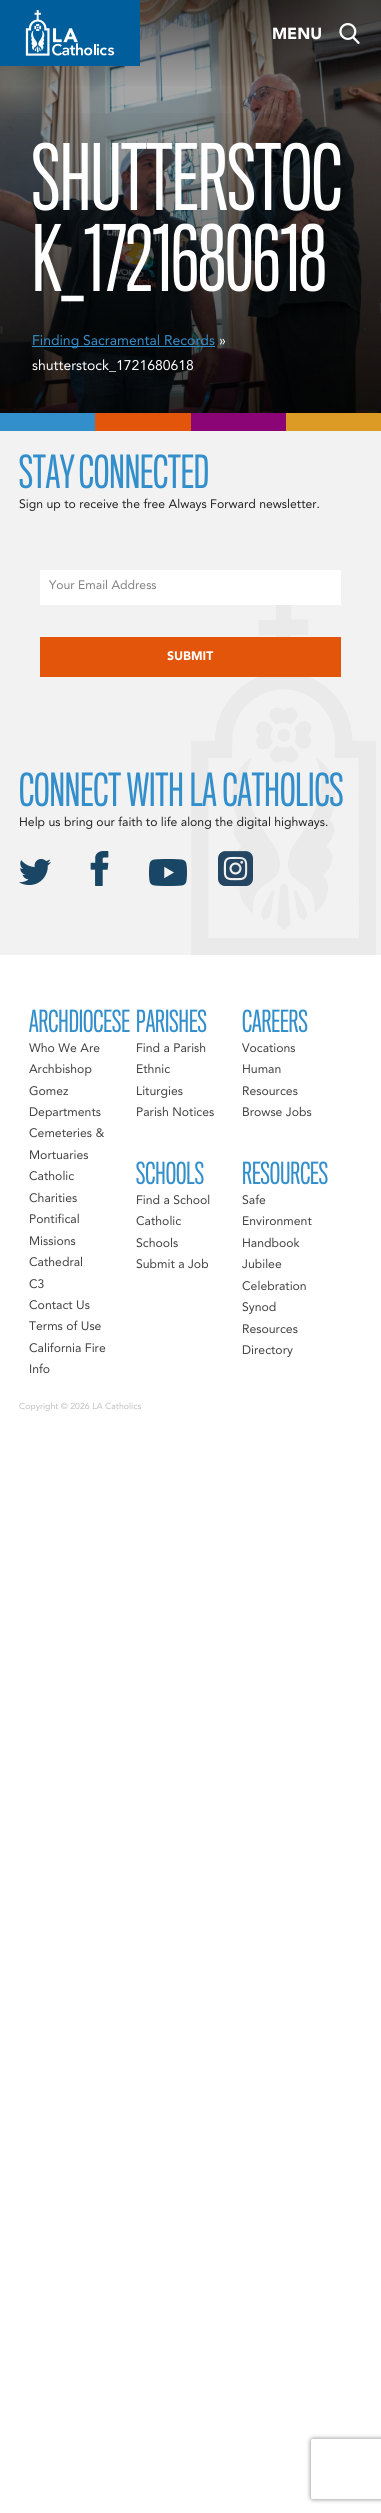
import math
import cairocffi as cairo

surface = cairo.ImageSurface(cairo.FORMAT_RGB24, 381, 2513)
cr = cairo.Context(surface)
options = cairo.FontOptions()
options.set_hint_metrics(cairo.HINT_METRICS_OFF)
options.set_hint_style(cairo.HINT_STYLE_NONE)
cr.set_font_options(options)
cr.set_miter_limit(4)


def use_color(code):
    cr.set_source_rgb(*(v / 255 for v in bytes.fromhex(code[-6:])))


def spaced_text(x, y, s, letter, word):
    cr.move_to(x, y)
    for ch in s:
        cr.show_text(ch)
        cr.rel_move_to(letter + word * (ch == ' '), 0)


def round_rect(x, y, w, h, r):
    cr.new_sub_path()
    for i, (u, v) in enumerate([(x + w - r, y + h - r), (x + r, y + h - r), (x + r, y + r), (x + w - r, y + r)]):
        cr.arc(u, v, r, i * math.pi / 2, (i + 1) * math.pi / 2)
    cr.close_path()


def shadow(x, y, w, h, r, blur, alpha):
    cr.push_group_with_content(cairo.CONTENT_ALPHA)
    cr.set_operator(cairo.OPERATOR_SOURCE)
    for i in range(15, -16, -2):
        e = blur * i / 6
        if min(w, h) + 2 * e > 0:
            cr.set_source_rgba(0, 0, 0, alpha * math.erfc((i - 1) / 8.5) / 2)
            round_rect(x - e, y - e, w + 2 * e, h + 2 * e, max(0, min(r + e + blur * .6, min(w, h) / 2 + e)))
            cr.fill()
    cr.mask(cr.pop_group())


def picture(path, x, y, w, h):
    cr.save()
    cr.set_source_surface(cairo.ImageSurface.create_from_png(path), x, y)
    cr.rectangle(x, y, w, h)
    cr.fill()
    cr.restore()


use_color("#ffffff")
cr.paint()
use_color("#000000")
cr.rectangle(0, 0, 381, 413)
cr.fill()
picture("img3.png", 0, 0, 381, 413)
gradient = cairo.LinearGradient(191, 0, 191, 90)
gradient.add_color_stop_rgba(0, 0, 0, 0, 0.5)
gradient.add_color_stop_rgba(1, 0, 0, 0, 0)
cr.set_source(gradient)
cr.rectangle(0, 0, 381, 86)
cr.fill()
use_color("#005e9c")
cr.rectangle(0, 0, 140, 66)
cr.fill()
picture("img1.png", 25, 10, 90, 46)
cr.select_font_face("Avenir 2")
cr.set_font_size(16)
use_color("#ffffff")
cr.move_to(272, 39)
cr.show_text("MENU")
picture("img2.png", 339, 23, 21, 21)
gradient = cairo.LinearGradient(190, 103, 191, 413)
gradient.add_color_stop_rgba(0, 0, 0, 0, 0)
gradient.add_color_stop_rgba(1, 0, 0, 0, 0.65)
cr.set_source(gradient)
cr.rectangle(0, 113, 381, 300)
cr.fill()
cr.select_font_face("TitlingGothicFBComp")
cr.set_font_size(84)
use_color("#ffffff")
cr.move_to(32, 210)
cr.show_text("SHUTTERSTOC")
cr.move_to(32, 291)
cr.show_text("K_1721680618")
use_color("#328fcc")
cr.rectangle(32, 346, 183, 1)
cr.fill()
cr.select_font_face("Avenir")
cr.set_font_size(14)
cr.move_to(32, 345)
cr.show_text("Finding Sacramental Records")
use_color("#ffffff")
cr.move_to(219, 345)
cr.show_text("»")
cr.move_to(32, 370)
cr.show_text("shutterstock_1721680618")
use_color("#328fcc")
cr.rectangle(0, 413, 95, 18)
cr.fill()
use_color("#db9b24")
cr.rectangle(286, 413, 95, 18)
cr.fill()
use_color("#e3550a")
cr.rectangle(95, 413, 96, 18)
cr.fill()
use_color("#8b0577")
cr.rectangle(191, 413, 95, 18)
cr.fill()
use_color("#f2f2f2")
cr.rectangle(0, 431, 381, 524)
cr.fill()
picture("img4.png", 191, 605, 185, 350)
cr.select_font_face("TitlingGothicFBComp")
cr.set_font_size(42)
use_color("#328fcc")
spaced_text(19, 488, "STAY CONNECTED", 0, -2)
cr.select_font_face("Avenir")
cr.set_font_size(12.25)
use_color("#222222")
cr.move_to(19, 508)
cr.show_text("Sign up to receive the free Always Forward newsletter.")
use_color("#ffffff")
cr.rectangle(40, 570, 301, 35)
cr.fill()
use_color("#808080")
cr.move_to(49, 589)
cr.show_text("Your Email Address")
cr.save()
cr.set_fill_rule(cairo.FILL_RULE_EVEN_ODD)
cr.new_path()
cr.move_to(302, 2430)
cr.line_to(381, 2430)
cr.line_to(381, 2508)
cr.line_to(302, 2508)
cr.close_path()
cr.move_to(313, 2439)
cr.line_to(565, 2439)
cr.curve_to(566, 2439, 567, 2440, 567, 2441)
cr.line_to(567, 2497)
cr.curve_to(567, 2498, 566, 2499, 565, 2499)
cr.line_to(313, 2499)
cr.curve_to(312, 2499, 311, 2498, 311, 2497)
cr.line_to(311, 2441)
cr.curve_to(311, 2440, 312, 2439, 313, 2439)
cr.close_path()
cr.clip()
use_color("#808080")
shadow(311, 2439, 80, 60, 2, 2.5, 1)
cr.restore()
use_color("#e3550a")
cr.rectangle(40, 637, 301, 40)
cr.fill()
cr.select_font_face("Avenir 2")
use_color("#ffffff")
cr.move_to(167, 660)
cr.show_text("SUBMIT")
cr.select_font_face("TitlingGothicFBComp")
cr.set_font_size(42)
use_color("#328fcc")
cr.move_to(19, 806)
cr.show_text("CONNECT WITH LA CATHOLICS")
cr.select_font_face("Avenir")
cr.set_font_size(12.25)
use_color("#222222")
cr.move_to(19, 826)
cr.show_text("Help us bring our faith to life along the digital highways.")
picture("img5.png", 19, 859, 32, 26)
picture("img6.png", 90, 851, 19, 35)
picture("img7.png", 149, 859, 38, 27)
picture("img8.png", 218, 851, 35, 35)
cr.select_font_face("TitlingGothicFBComp")
cr.set_font_size(28)
use_color("#328fcc")
cr.move_to(29, 1032)
cr.show_text("ARCHDIOCESE")
cr.select_font_face("Avenir")
cr.set_font_size(12.25)
use_color("#404040")
cr.move_to(29, 1052)
cr.show_text("Who We Are")
cr.move_to(29, 1073)
cr.show_text("Archbishop")
cr.move_to(29, 1095)
cr.show_text("Gomez")
cr.move_to(29, 1116)
cr.show_text("Departments")
cr.move_to(29, 1137)
cr.show_text("Cemeteries &")
cr.move_to(29, 1159)
cr.show_text("Mortuaries")
cr.move_to(29, 1180)
cr.show_text("Catholic")
cr.move_to(29, 1202)
cr.show_text("Charities")
cr.move_to(29, 1223)
cr.show_text("Pontifical")
cr.move_to(29, 1245)
cr.show_text("Missions")
cr.move_to(29, 1266)
cr.show_text("Cathedral")
cr.move_to(29, 1288)
cr.show_text("C3")
cr.move_to(29, 1309)
cr.show_text("Contact Us")
cr.move_to(29, 1330)
cr.show_text("Terms of Use")
cr.move_to(29, 1352)
cr.show_text("California Fire")
cr.move_to(29, 1373)
cr.show_text("Info")
cr.select_font_face("TitlingGothicFBComp")
cr.set_font_size(28)
use_color("#328fcc")
cr.move_to(136, 1032)
cr.show_text("PARISHES")
cr.select_font_face("Avenir")
cr.set_font_size(12.25)
use_color("#404040")
cr.move_to(136, 1052)
cr.show_text("Find a Parish")
cr.move_to(136, 1073)
cr.show_text("Ethnic")
cr.move_to(136, 1095)
cr.show_text("Liturgies")
cr.move_to(136, 1116)
cr.show_text("Parish Notices")
cr.select_font_face("TitlingGothicFBComp")
cr.set_font_size(28)
use_color("#328fcc")
cr.move_to(136, 1184)
cr.show_text("SCHOOLS")
cr.select_font_face("Avenir")
cr.set_font_size(12.25)
use_color("#404040")
cr.move_to(136, 1204)
cr.show_text("Find a School")
cr.move_to(136, 1225)
cr.show_text("Catholic")
cr.move_to(136, 1247)
cr.show_text("Schools")
cr.move_to(136, 1268)
cr.show_text("Submit a Job")
cr.select_font_face("TitlingGothicFBComp")
cr.set_font_size(28)
use_color("#328fcc")
cr.move_to(242, 1032)
cr.show_text("CAREERS")
cr.select_font_face("Avenir")
cr.set_font_size(12.25)
use_color("#404040")
cr.move_to(242, 1052)
cr.show_text("Vocations")
cr.move_to(242, 1073)
cr.show_text("Human")
cr.move_to(242, 1095)
cr.show_text("Resources")
cr.move_to(242, 1116)
cr.show_text("Browse Jobs")
cr.select_font_face("TitlingGothicFBComp")
cr.set_font_size(28)
use_color("#328fcc")
cr.move_to(242, 1184)
cr.show_text("RESOURCES")
cr.select_font_face("Avenir")
cr.set_font_size(12.25)
use_color("#404040")
cr.move_to(242, 1204)
cr.show_text("Safe")
cr.move_to(242, 1225)
cr.show_text("Environment")
cr.move_to(242, 1247)
cr.show_text("Handbook")
cr.move_to(242, 1268)
cr.show_text("Jubilee")
cr.move_to(242, 1290)
cr.show_text("Celebration")
cr.move_to(242, 1311)
cr.show_text("Synod")
cr.move_to(242, 1333)
cr.show_text("Resources")
cr.move_to(242, 1354)
cr.show_text("Directory")
cr.set_font_size(8.75)
use_color("#bfbfbf")
cr.move_to(19, 1409)
cr.show_text("Copyright © 2026 LA Catholics")
surface.write_to_png("result.png")
